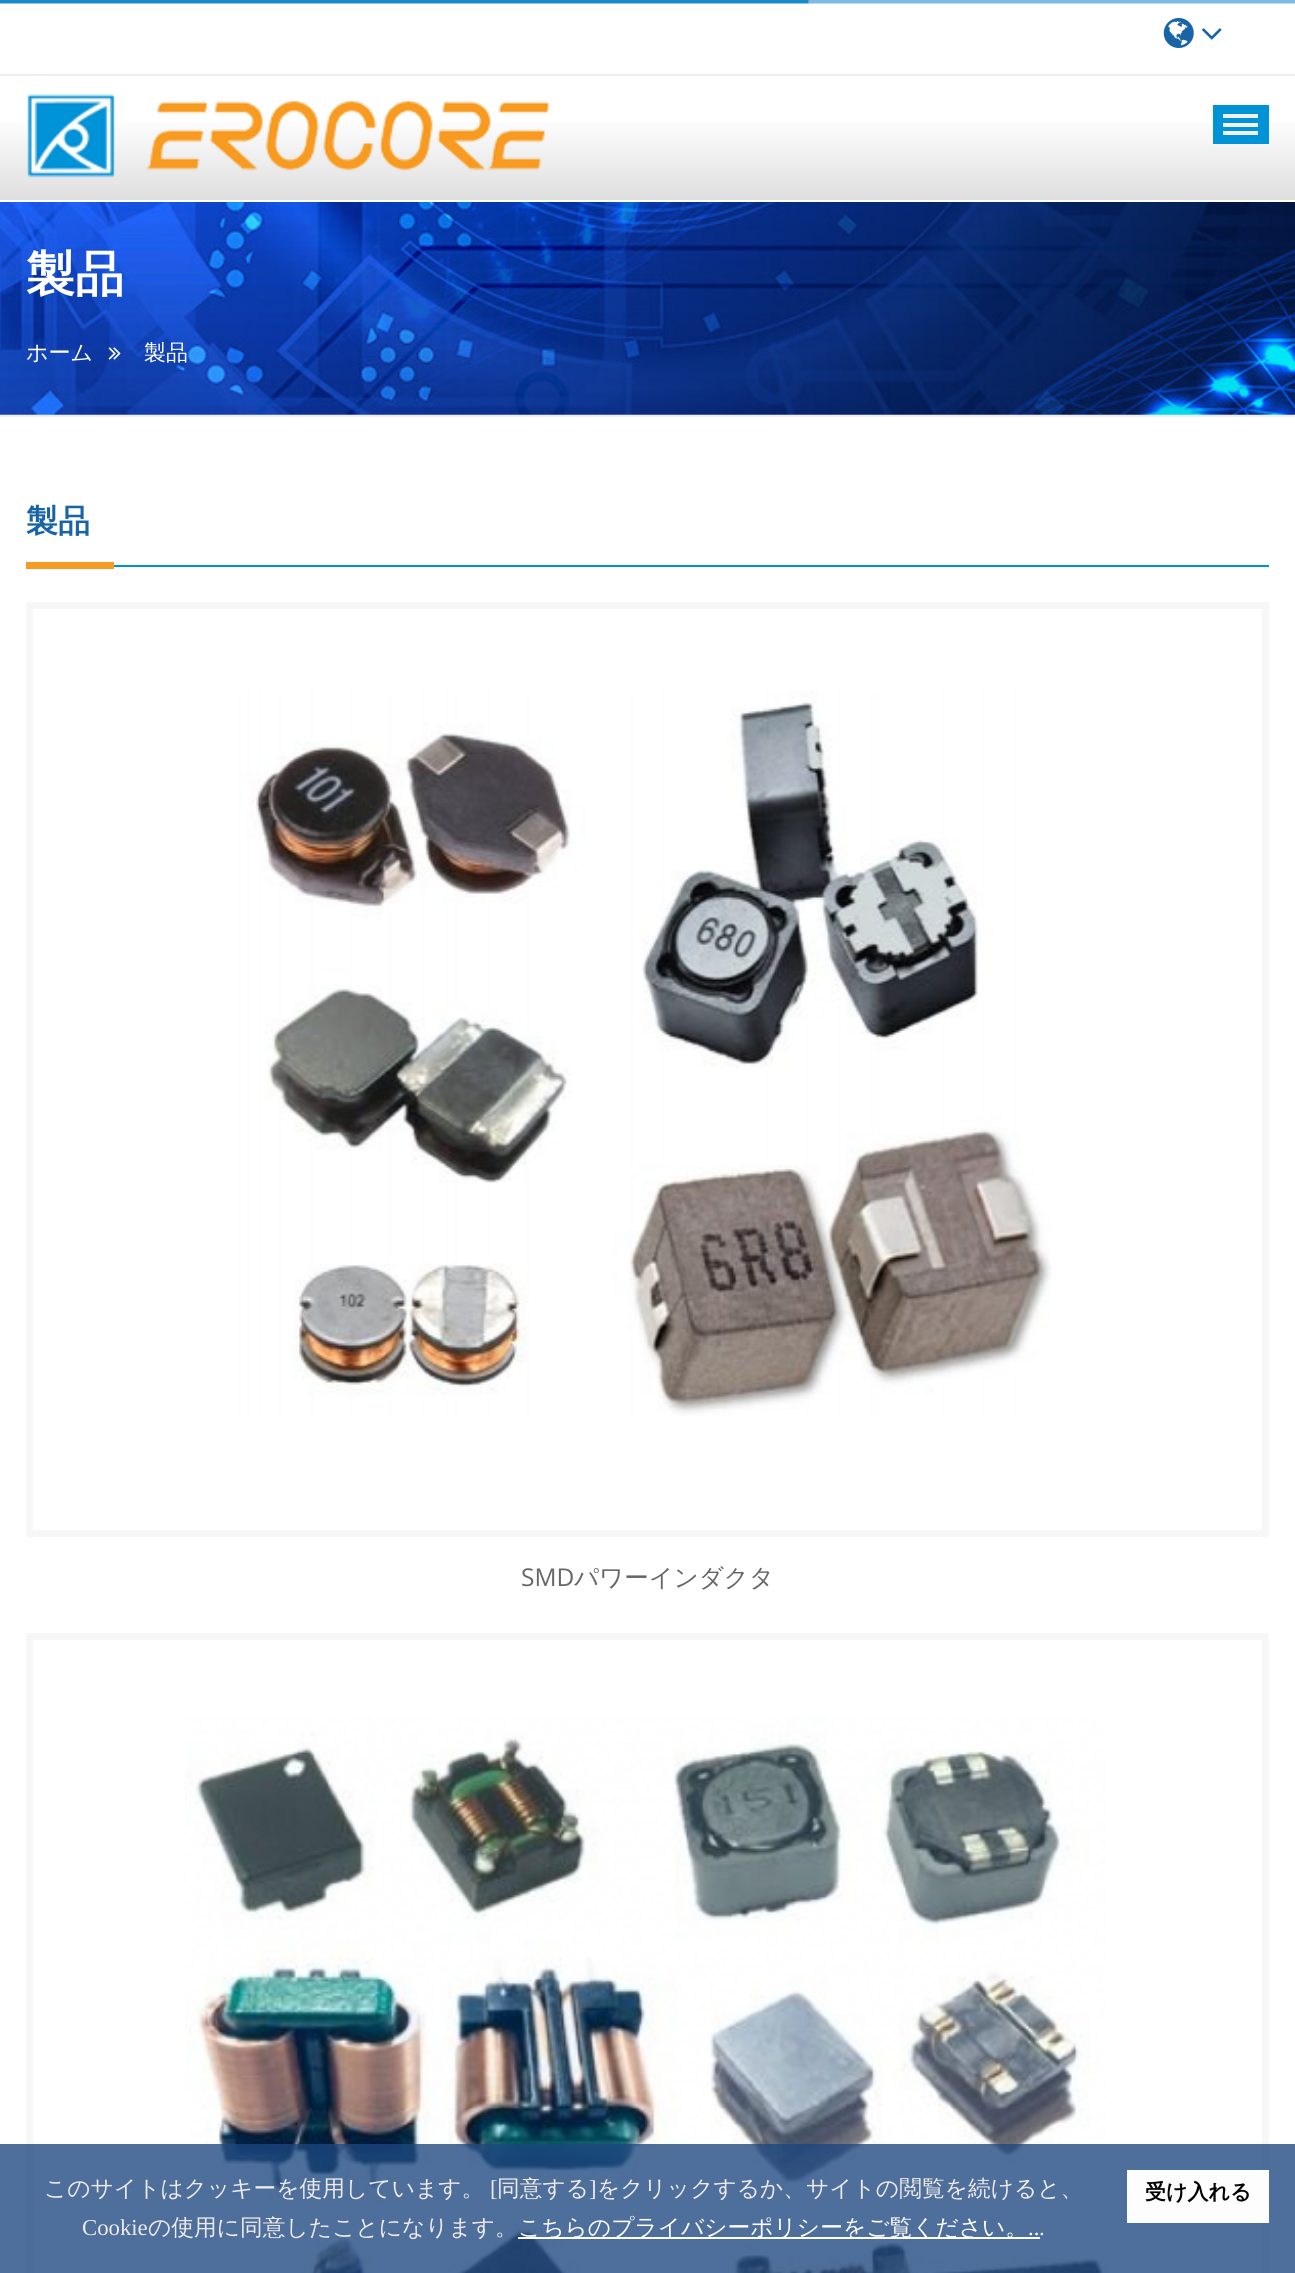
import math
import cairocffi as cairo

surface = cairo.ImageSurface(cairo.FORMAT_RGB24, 1295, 2273)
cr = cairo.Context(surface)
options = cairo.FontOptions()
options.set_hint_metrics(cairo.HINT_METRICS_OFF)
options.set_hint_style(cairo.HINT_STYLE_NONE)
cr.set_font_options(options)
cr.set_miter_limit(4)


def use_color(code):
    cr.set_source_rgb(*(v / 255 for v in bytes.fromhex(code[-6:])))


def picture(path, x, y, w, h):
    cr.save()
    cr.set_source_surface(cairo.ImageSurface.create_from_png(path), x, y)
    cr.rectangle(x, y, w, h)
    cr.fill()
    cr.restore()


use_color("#ffffff")
cr.paint()
gradient = cairo.LinearGradient(648, 0, 648, 200)
gradient.add_color_stop_rgba(0.58, 1, 1, 1, 1)
gradient.add_color_stop_rgba(0.99, 0.875, 0.875, 0.875, 1)
cr.set_source(gradient)
cr.rectangle(0, 122, 1295, 78)
cr.fill()
use_color("#eeeeee")
cr.rectangle(0, 74, 1295, 2)
cr.fill()
picture("img1.png", 0, 0, 1295, 4)
picture("img2.png", 1163, 18, 31, 30)
picture("img3.png", 1202, 28, 20, 12)
picture("img4.png", 27, 94, 523, 84)
use_color("#0193d7")
cr.rectangle(1214, 106, 54, 37)
cr.fill_preserve()
use_color("#0393d5")
cr.stroke()
use_color("#f1f1f1")
cr.rectangle(1223, 114, 35, 4)
cr.fill()
cr.rectangle(1223, 123, 35, 4)
cr.fill()
cr.rectangle(1223, 131, 35, 4)
cr.fill()
picture("img5.png", 0, 202, 1295, 213)
use_color("#eeeeee")
cr.rectangle(0, 415, 1295, 2)
cr.fill()
cr.select_font_face("WenQuanYi Zen Hei", cairo.FONT_SLANT_NORMAL, cairo.FONT_WEIGHT_BOLD)
cr.set_font_size(49)
use_color("#ffffff")
cr.move_to(26, 291)
cr.show_text("製品")
cr.select_font_face("WenQuanYi Zen Hei Medium")
cr.set_font_size(22)
cr.move_to(26, 360)
cr.show_text("ホーム")
picture("img6.png", 108, 347, 13, 13)
cr.move_to(144, 360)
cr.show_text("製品")
use_color("#0193d6")
cr.rectangle(114, 565, 1155, 2)
cr.fill()
cr.select_font_face("WenQuanYi Zen Hei", cairo.FONT_SLANT_NORMAL, cairo.FONT_WEIGHT_BOLD)
cr.set_font_size(32)
use_color("#1964a6")
cr.move_to(26, 532)
cr.show_text("製品")
use_color("#f69b23")
cr.rectangle(26, 562, 88, 7)
cr.fill()
cr.rectangle(29.5, 605.5, 1236, 928)
use_color("#f7f7f7")
cr.set_line_width(7)
cr.stroke()
picture("img7.png", 238, 691, 814, 725)
cr.select_font_face("Open Sans")
cr.set_font_size(24.5)
use_color("#666666")
cr.move_to(521, 1586)
cr.show_text("SMD")
cr.select_font_face("WenQuanYi Zen Hei Medium")
cr.move_to(574, 1586)
cr.show_text("パワーインダクタ")
cr.rectangle(29.5, 1636.5, 1236, 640)
use_color("#f7f7f7")
cr.stroke()
picture("img8.png", 185, 1716, 923, 557)
cr.set_source_rgba(0.114, 0.278, 0.498, 0.78)
cr.rectangle(0, 2144, 1295, 129)
cr.fill()
cr.set_font_size(22.75)
use_color("#efeaea")
cr.move_to(44, 2196)
cr.show_text("このサイトはクッキーを使用しています。")
cr.select_font_face("Liberation Serif")
cr.move_to(490, 2196)
cr.show_text("[")
cr.select_font_face("WenQuanYi Zen Hei Medium")
cr.move_to(497, 2196)
cr.show_text("同意する")
cr.select_font_face("Liberation Serif")
cr.move_to(589, 2196)
cr.show_text("]")
cr.select_font_face("WenQuanYi Zen Hei Medium")
cr.move_to(597, 2196)
cr.show_text("をクリックするか、サイトの閲覧を続けると、")
cr.select_font_face("Liberation Serif")
cr.move_to(82, 2235)
cr.show_text("Cookie")
cr.select_font_face("WenQuanYi Zen Hei Medium")
cr.move_to(148, 2235)
cr.show_text("の使用に同意したことになります。")
use_color("#ffffff")
cr.rectangle(518, 2237, 522, 2)
cr.fill()
cr.move_to(518, 2235)
cr.show_text("こちらのプライバシーポリシーをご覧ください。")
cr.select_font_face("Liberation Serif")
cr.move_to(1028, 2235)
cr.show_text("..")
use_color("#efeaea")
cr.move_to(1039, 2235)
cr.show_text(".")
use_color("#fdfdfd")
cr.rectangle(1127, 2170, 142, 53)
cr.fill()
cr.select_font_face("WenQuanYi Zen Hei", cairo.FONT_SLANT_NORMAL, cairo.FONT_WEIGHT_BOLD)
cr.set_font_size(21)
use_color("#000000")
cr.move_to(1145, 2199)
cr.show_text("受け入れる")
surface.write_to_png("result.png")
